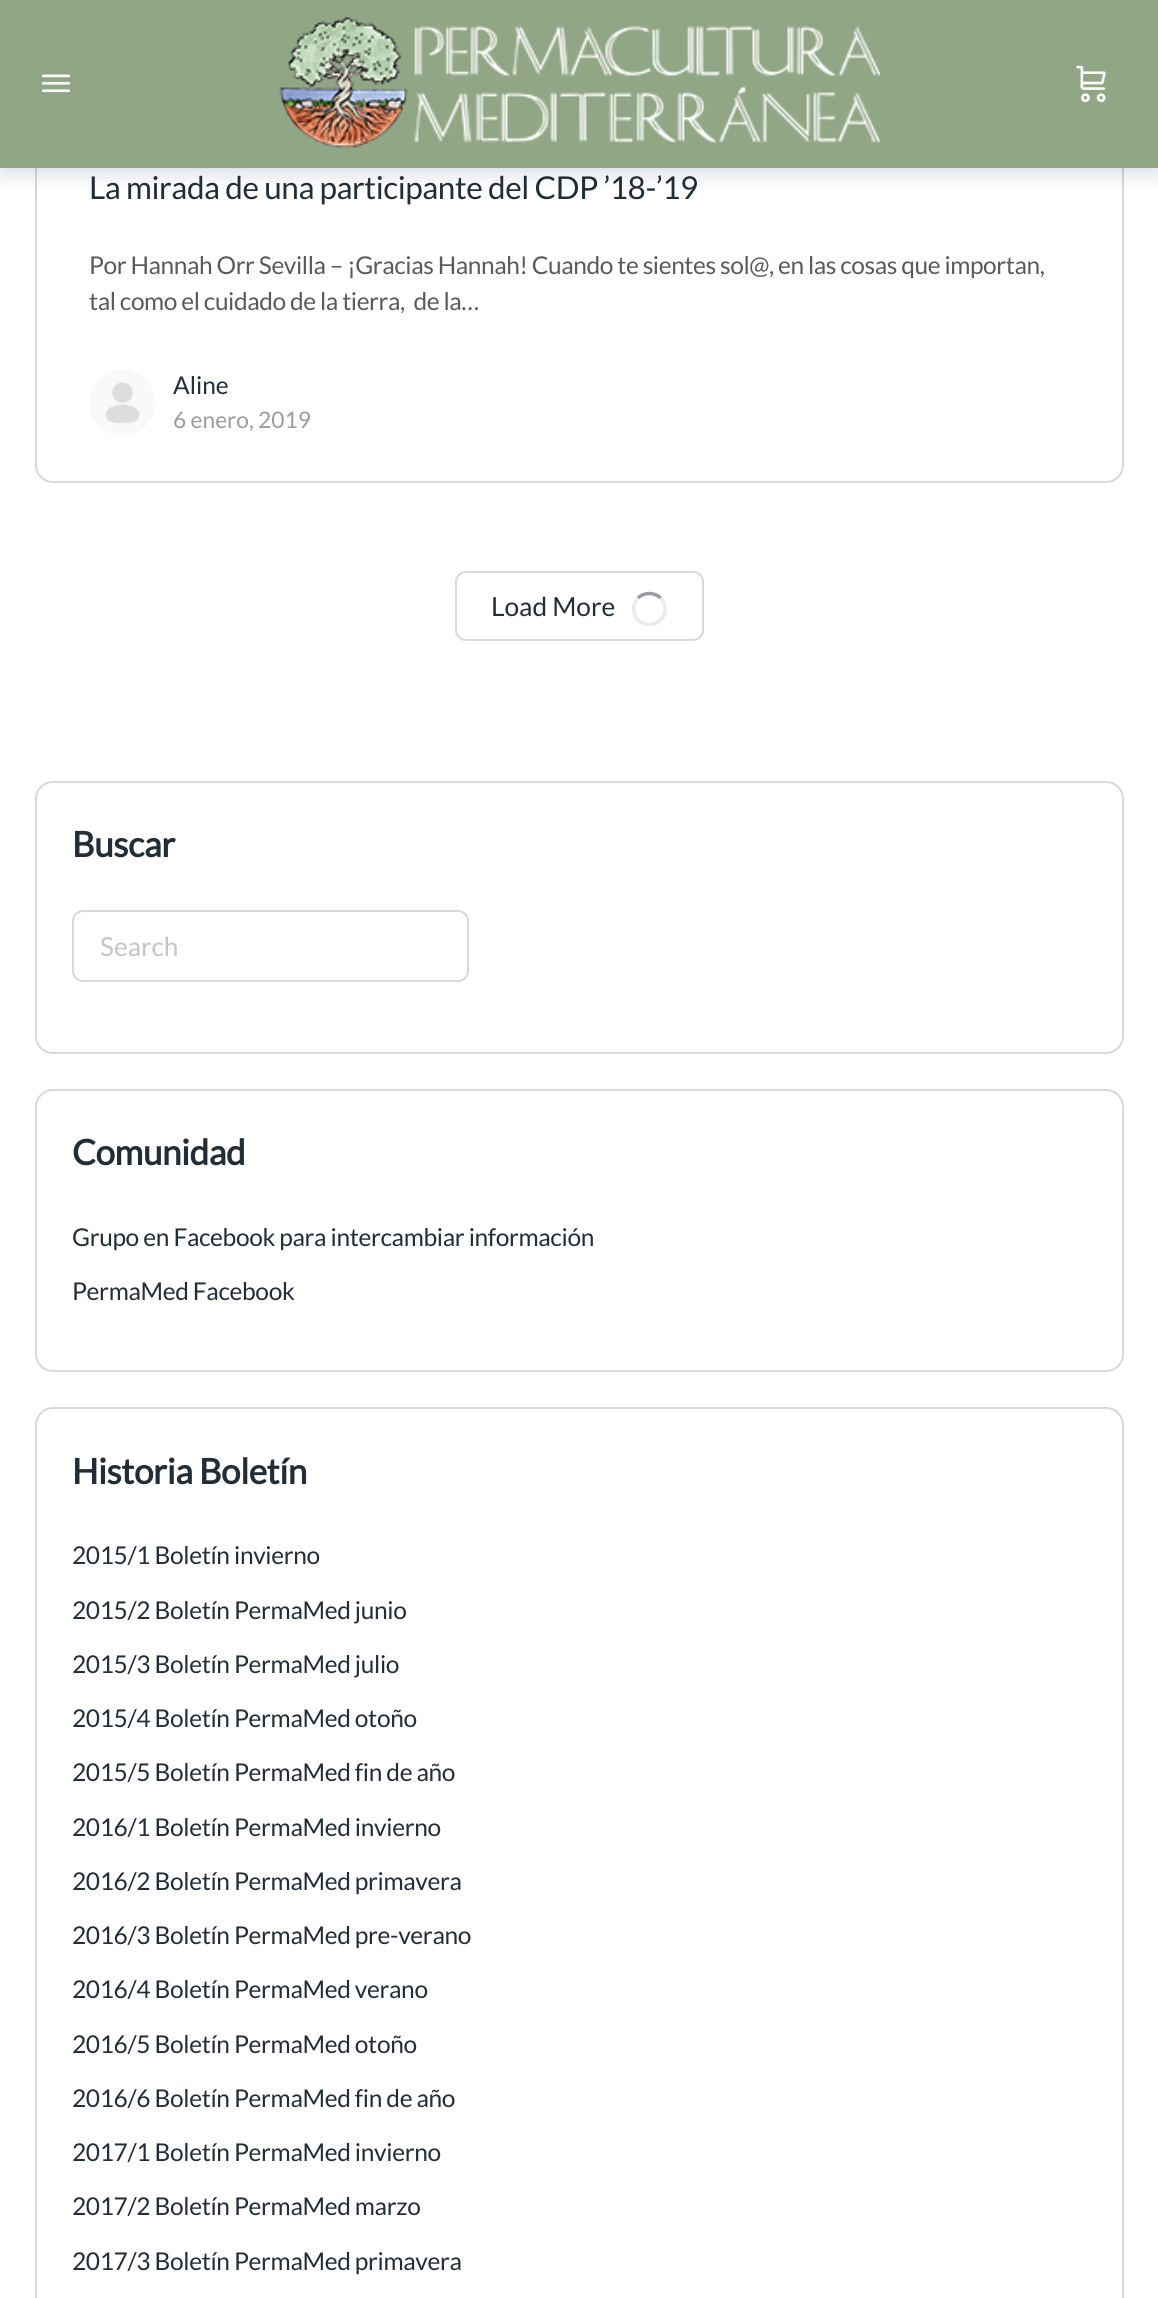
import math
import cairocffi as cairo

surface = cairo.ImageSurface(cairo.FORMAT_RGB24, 1158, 2298)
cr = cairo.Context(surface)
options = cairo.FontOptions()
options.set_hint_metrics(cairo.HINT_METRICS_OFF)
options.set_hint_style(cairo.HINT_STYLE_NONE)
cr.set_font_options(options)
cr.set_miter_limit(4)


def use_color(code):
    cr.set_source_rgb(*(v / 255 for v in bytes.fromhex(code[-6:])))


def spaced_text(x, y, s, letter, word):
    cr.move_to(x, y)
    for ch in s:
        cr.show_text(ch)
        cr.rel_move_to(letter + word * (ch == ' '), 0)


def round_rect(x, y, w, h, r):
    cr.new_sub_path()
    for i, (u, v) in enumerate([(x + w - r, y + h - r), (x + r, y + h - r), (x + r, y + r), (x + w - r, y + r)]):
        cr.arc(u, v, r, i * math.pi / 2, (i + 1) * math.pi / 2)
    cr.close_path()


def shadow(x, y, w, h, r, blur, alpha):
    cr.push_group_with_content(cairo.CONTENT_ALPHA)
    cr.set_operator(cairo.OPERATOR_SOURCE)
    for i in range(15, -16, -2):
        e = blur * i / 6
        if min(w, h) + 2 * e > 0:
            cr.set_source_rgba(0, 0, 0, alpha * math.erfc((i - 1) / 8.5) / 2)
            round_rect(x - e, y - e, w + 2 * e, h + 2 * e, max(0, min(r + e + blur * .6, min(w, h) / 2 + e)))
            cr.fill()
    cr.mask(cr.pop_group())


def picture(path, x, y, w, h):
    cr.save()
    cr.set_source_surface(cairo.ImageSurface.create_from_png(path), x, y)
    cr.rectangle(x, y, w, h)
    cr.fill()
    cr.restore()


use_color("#ffffff")
cr.paint()
round_rect(36, -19, 1087, 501, 17)
use_color("#d6d9dd")
cr.stroke()
use_color("#41476c")
shadow(0, 9, 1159, 168, 0, 9, 0.15)
cr.set_source_rgba(0.545, 0.553, 0.616, 0.05)
cr.new_path()
cr.move_to(0, 168)
cr.line_to(0, 170)
cr.line_to(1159, 170)
cr.line_to(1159, 2)
cr.line_to(1158, 2)
cr.line_to(1158, 168)
cr.close_path()
cr.fill()
use_color("#91a685")
cr.rectangle(0, 0, 1158, 168)
cr.fill()
picture("img1.png", 42, 74, 28, 19)
picture("img2.png", 279, 17, 601, 132)
picture("img3.png", 1076, 65, 30, 38)
cr.select_font_face("Lato")
cr.set_font_size(31.5)
use_color("#222e37")
spaced_text(89, 199, "La mirada de una participante del CDP ’18-’19", -0.42, 0)
cr.set_font_size(24.5)
use_color("#5a5a5a")
spaced_text(89, 274, "Por Hannah Orr Sevilla – ¡Gracias Hannah! Cuando te sientes sol@, en las cosas que importan,", -0.42, 0)
spaced_text(89, 310, "tal como el cuidado de la tierra,  de la…", -0.42, 0)
picture("img4.png", 90, 370, 65, 66)
use_color("#222e37")
cr.move_to(173, 394)
cr.show_text("Aline")
cr.set_font_size(22.75)
use_color("#9b9c9f")
cr.move_to(173, 428)
cr.show_text("6 enero, 2019")
round_rect(456, 572, 247, 68, 10)
use_color("#d6d9dd")
cr.stroke()
cr.set_font_size(26.25)
use_color("#222e37")
cr.move_to(491, 616)
cr.show_text("Load More")
cr.new_path()
cr.move_to(638, 598)
cr.curve_to(644, 592, 654.5, 592, 660.5, 598)
use_color("#9b9c9f")
cr.set_line_width(3.5)
cr.stroke()
cr.new_path()
cr.move_to(660.5, 598)
cr.curve_to(663.5, 601, 665, 605, 665, 609)
cr.curve_to(665, 628, 637.5, 630.5, 634, 612)
cr.curve_to(633, 607, 634.5, 601.5, 638, 598)
cr.set_source_rgba(0.608, 0.612, 0.624, 0.2)
cr.stroke()
round_rect(36, 782, 1087, 271, 17)
use_color("#d6d9dd")
cr.set_line_width(2)
cr.stroke()
cr.select_font_face("Lato", cairo.FONT_SLANT_NORMAL, cairo.FONT_WEIGHT_BOLD)
cr.set_font_size(35)
use_color("#222e37")
spaced_text(72, 857, "Buscar", -0.42, 0)
round_rect(73, 911, 395, 70, 10)
use_color("#d6d9dd")
cr.stroke()
cr.select_font_face("Lato")
cr.set_font_size(26.25)
use_color("#c3c6c9")
cr.move_to(100, 956)
cr.show_text("Search")
round_rect(36, 1090, 1087, 281, 17)
use_color("#d6d9dd")
cr.stroke()
cr.select_font_face("Lato", cairo.FONT_SLANT_NORMAL, cairo.FONT_WEIGHT_BOLD)
cr.set_font_size(35)
use_color("#222e37")
spaced_text(72, 1165, "Comunidad", -0.42, 0)
cr.select_font_face("Lato")
cr.set_font_size(24.5)
spaced_text(72, 1246, "Grupo en Facebook para intercambiar información", -0.35, 0)
spaced_text(72, 1300, "PermaMed Facebook", -0.35, 0)
round_rect(36, 1408, 1087, 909, 17)
use_color("#d6d9dd")
cr.stroke()
cr.select_font_face("Lato", cairo.FONT_SLANT_NORMAL, cairo.FONT_WEIGHT_BOLD)
cr.set_font_size(35)
use_color("#222e37")
spaced_text(72, 1484, "Historia Boletín", -0.42, 0)
cr.select_font_face("Lato")
cr.set_font_size(24.5)
spaced_text(72, 1564, "2015/1 Boletín invierno", -0.35, 0)
spaced_text(72, 1619, "2015/2 Boletín PermaMed junio", -0.35, 0)
spaced_text(72, 1673, "2015/3 Boletín PermaMed julio", -0.35, 0)
spaced_text(72, 1727, "2015/4 Boletín PermaMed otoño", -0.35, 0)
spaced_text(72, 1781, "2015/5 Boletín PermaMed fin de año", -0.35, 0)
spaced_text(72, 1836, "2016/1 Boletín PermaMed invierno", -0.35, 0)
spaced_text(72, 1890, "2016/2 Boletín PermaMed primavera", -0.35, 0)
spaced_text(72, 1944, "2016/3 Boletín PermaMed pre-verano", -0.35, 0)
spaced_text(72, 1998, "2016/4 Boletín PermaMed verano", -0.35, 0)
spaced_text(72, 2053, "2016/5 Boletín PermaMed otoño", -0.35, 0)
spaced_text(72, 2107, "2016/6 Boletín PermaMed fin de año", -0.35, 0)
spaced_text(72, 2161, "2017/1 Boletín PermaMed invierno", -0.35, 0)
spaced_text(72, 2215, "2017/2 Boletín PermaMed marzo", -0.35, 0)
spaced_text(72, 2270, "2017/3 Boletín PermaMed primavera", -0.35, 0)
surface.write_to_png("result.png")
